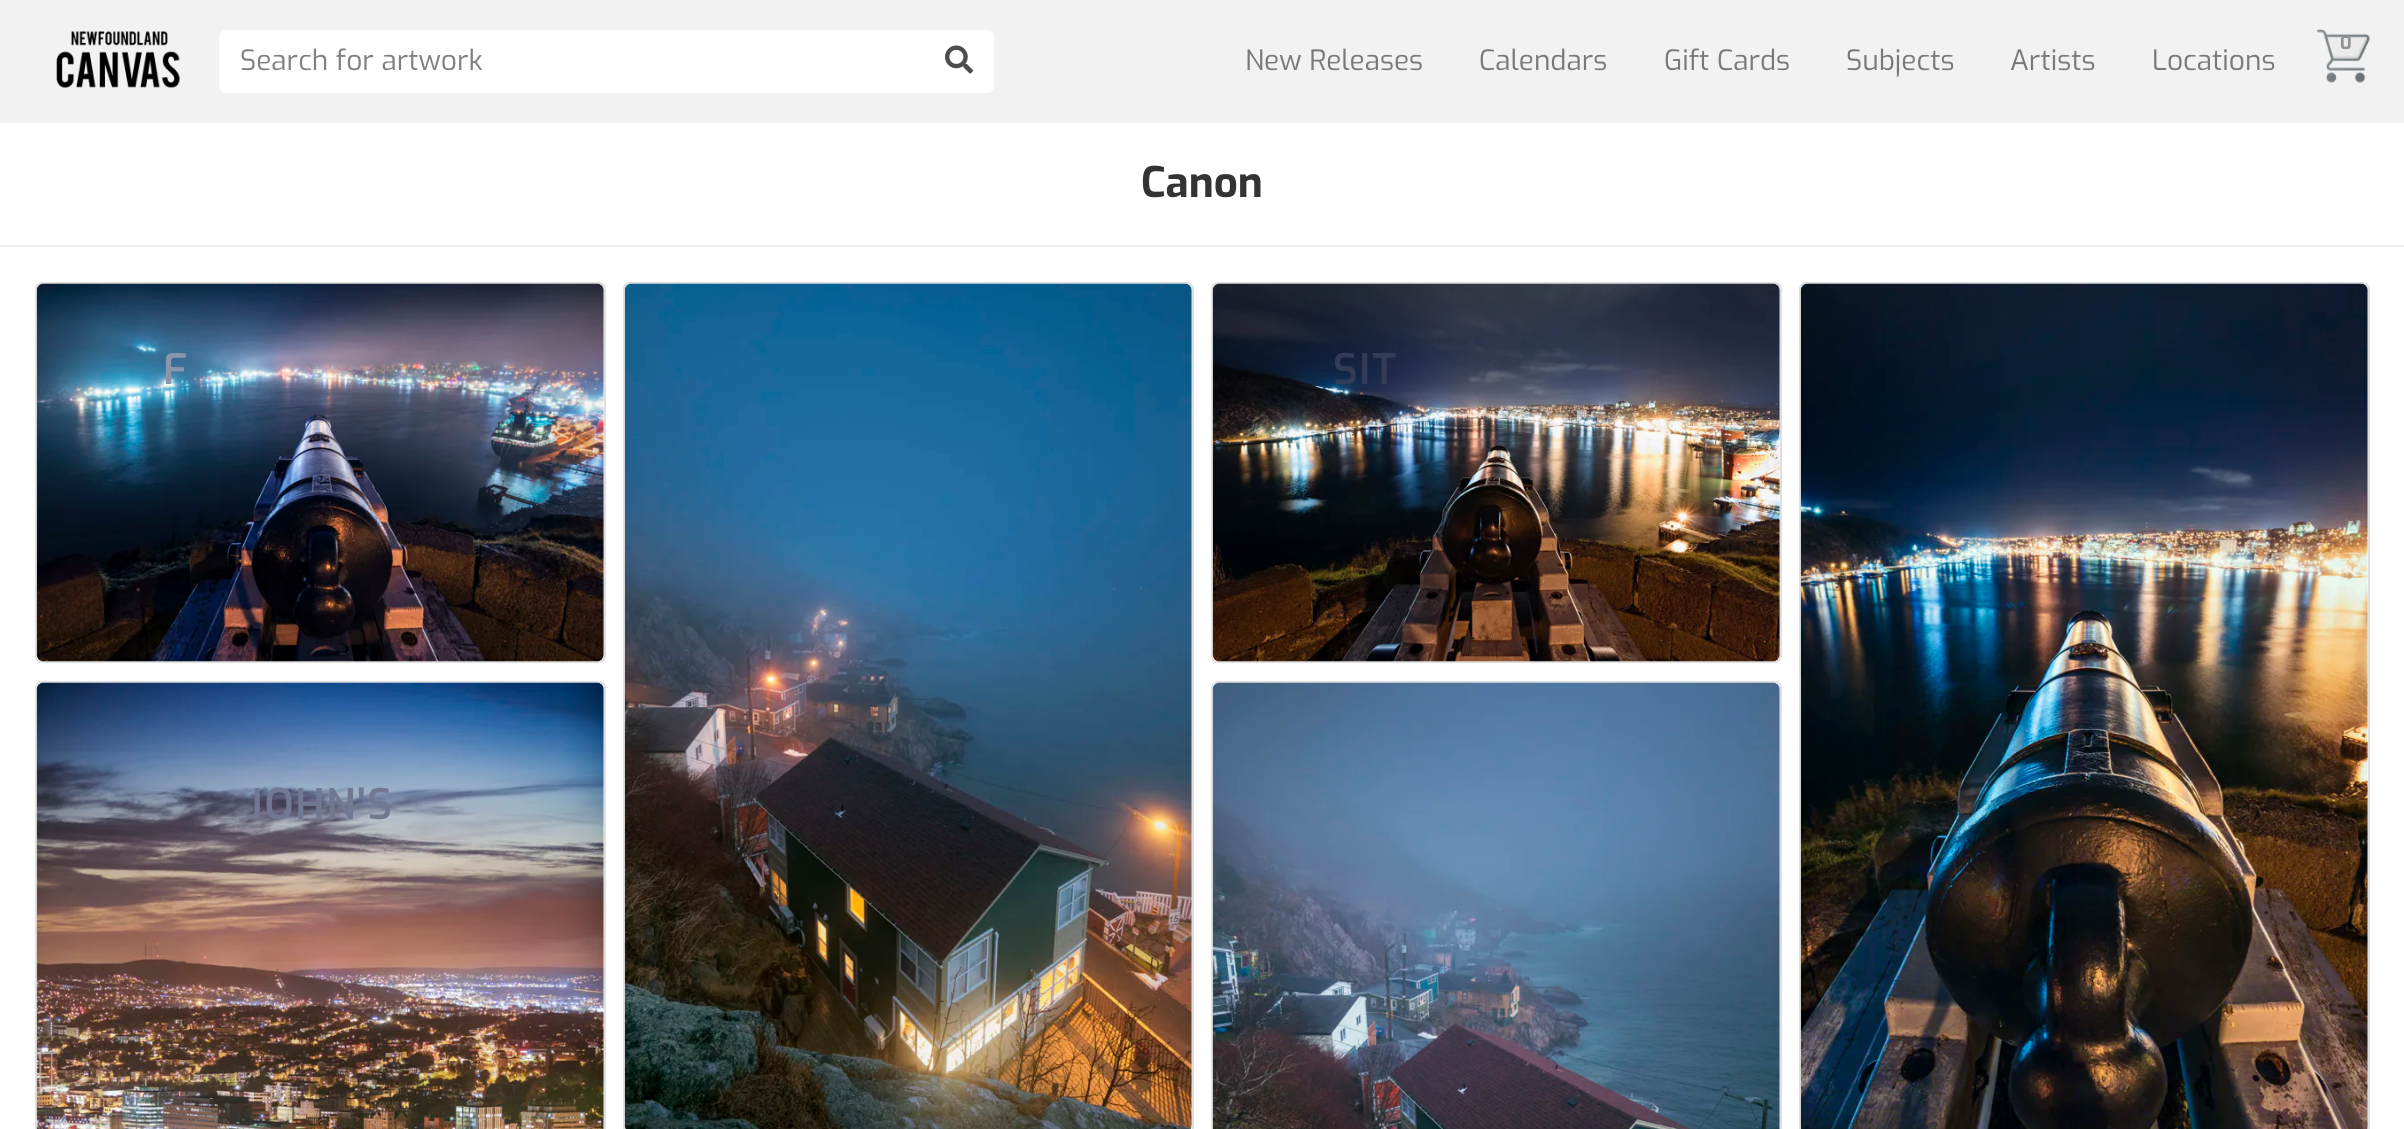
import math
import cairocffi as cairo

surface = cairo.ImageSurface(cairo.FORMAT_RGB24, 2404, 1129)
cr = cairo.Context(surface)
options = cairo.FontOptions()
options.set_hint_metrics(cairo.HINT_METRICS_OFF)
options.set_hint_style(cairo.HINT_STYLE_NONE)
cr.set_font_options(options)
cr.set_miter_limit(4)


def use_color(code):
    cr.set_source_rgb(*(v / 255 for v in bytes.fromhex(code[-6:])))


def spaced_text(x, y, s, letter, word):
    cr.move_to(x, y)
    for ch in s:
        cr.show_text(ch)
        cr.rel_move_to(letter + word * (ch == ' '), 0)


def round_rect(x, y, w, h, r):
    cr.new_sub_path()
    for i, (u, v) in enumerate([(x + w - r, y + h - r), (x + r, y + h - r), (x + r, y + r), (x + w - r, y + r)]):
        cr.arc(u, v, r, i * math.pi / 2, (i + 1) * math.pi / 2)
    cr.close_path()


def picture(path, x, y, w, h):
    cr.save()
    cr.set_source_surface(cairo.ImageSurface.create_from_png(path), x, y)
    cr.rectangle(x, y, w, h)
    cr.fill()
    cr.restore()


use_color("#ffffff")
cr.paint()
use_color("#f2f2f2")
cr.rectangle(0, 0, 2404, 123)
cr.fill()
picture("img1.png", 56, 31, 125, 57)
use_color("#ffffff")
cr.new_path()
cr.move_to(226, 30)
cr.line_to(926, 30)
cr.line_to(926, 93)
cr.line_to(226, 93)
cr.curve_to(222, 93, 219, 90, 219, 86)
cr.line_to(219, 37)
cr.curve_to(219, 33, 222, 30, 226, 30)
cr.close_path()
cr.fill()
cr.select_font_face("Exo")
cr.set_font_size(28)
use_color("#808080")
cr.move_to(240, 70)
cr.show_text("Search for artwork")
use_color("#ffffff")
cr.new_path()
cr.move_to(924, 30)
cr.line_to(987, 30)
cr.curve_to(991, 30, 994, 33, 994, 37)
cr.line_to(994, 86)
cr.curve_to(994, 90, 991, 93, 987, 93)
cr.line_to(924, 93)
cr.close_path()
cr.fill()
picture("img2.png", 945, 45, 28, 29)
picture("img3.png", 2317, 29, 53, 54)
cr.select_font_face("Exo", cairo.FONT_SLANT_NORMAL, cairo.FONT_WEIGHT_BOLD)
cr.set_font_size(18)
use_color("#929292")
cr.move_to(2340, 49)
cr.show_text("0")
cr.select_font_face("Exo")
cr.set_font_size(28)
use_color("#797979")
cr.move_to(1245, 70)
cr.show_text("New Releases")
cr.move_to(1479, 70)
cr.show_text("Calendars")
cr.move_to(1664, 70)
cr.show_text("Gift Cards")
cr.move_to(1846, 70)
cr.show_text("Subjects")
cr.move_to(2010, 70)
cr.show_text("Artists")
cr.move_to(2152, 70)
cr.show_text("Locations")
use_color("#f0f0f0")
cr.rectangle(0, 245, 2404, 2)
cr.fill()
cr.select_font_face("Exo", cairo.FONT_SLANT_NORMAL, cairo.FONT_WEIGHT_BOLD)
cr.set_font_size(42)
use_color("#333333")
cr.move_to(1141, 197)
cr.show_text("Canon")
round_rect(36, 283, 569, 379, 6)
use_color("#dfdfdf")
cr.stroke()
picture("img4.png", 36, 283, 568, 379)
cr.select_font_face("Exo SemiBold")
use_color("#8b96ac")
spaced_text(163, 384, "F", 1.75, 2)
round_rect(36, 682, 569, 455, 6)
use_color("#dfdfdf")
cr.stroke()
picture("img5.png", 36, 682, 568, 447)
use_color("#717891")
spaced_text(246, 819, "JOHN'S", 1.75, 0)
round_rect(624, 283, 569, 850, 6)
use_color("#dfdfdf")
cr.stroke()
picture("img6.png", 624, 283, 568, 846)
round_rect(1212, 283, 569, 379, 6)
cr.stroke()
picture("img7.png", 1212, 283, 568, 379)
use_color("#333c56")
spaced_text(1333, 384, "SIT", 1.75, 2)
round_rect(1212, 682, 569, 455, 6)
use_color("#dfdfdf")
cr.stroke()
picture("img8.png", 1212, 682, 568, 447)
round_rect(1800, 283, 569, 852, 6)
cr.stroke()
picture("img9.png", 1800, 283, 568, 846)
surface.write_to_png("result.png")
